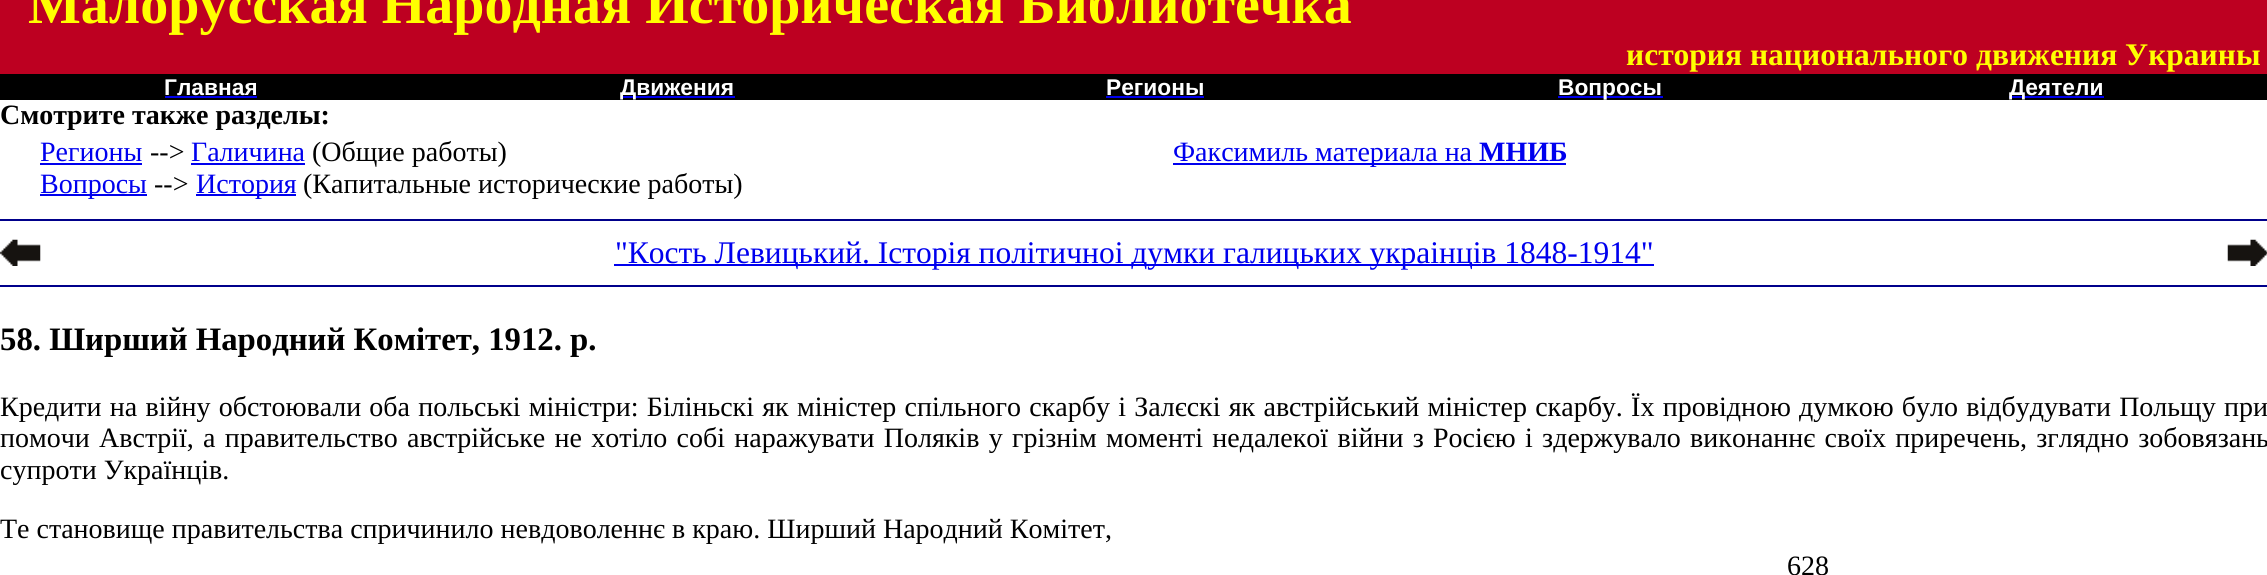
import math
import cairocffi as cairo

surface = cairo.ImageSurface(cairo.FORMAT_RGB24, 2267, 575)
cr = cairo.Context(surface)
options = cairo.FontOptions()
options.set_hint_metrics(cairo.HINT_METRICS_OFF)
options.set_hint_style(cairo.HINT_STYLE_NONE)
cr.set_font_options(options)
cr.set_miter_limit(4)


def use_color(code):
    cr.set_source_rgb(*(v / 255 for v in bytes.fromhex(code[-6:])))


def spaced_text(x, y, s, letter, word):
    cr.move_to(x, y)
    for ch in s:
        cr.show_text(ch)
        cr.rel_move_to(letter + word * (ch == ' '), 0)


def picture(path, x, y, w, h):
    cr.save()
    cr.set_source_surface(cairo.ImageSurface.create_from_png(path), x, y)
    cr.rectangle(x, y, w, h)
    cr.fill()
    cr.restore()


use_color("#ffffff")
cr.paint()
use_color("#bd0021")
cr.rectangle(0, 0, 2267, 74)
cr.fill()
cr.select_font_face("Liberation Serif", cairo.FONT_SLANT_NORMAL, cairo.FONT_WEIGHT_BOLD)
cr.set_font_size(56)
use_color("#ffff00")
cr.move_to(28, 23)
cr.show_text("Малорусская Народная Историческая Библиотечка")
cr.set_font_size(31.5)
cr.move_to(1626, 65)
cr.show_text("история национального движения Украины")
use_color("#000000")
cr.rectangle(0, 74, 2267, 26)
cr.fill()
cr.select_font_face("Liberation Sans", cairo.FONT_SLANT_NORMAL, cairo.FONT_WEIGHT_BOLD)
cr.set_font_size(22.75)
use_color("#ffffff")
cr.move_to(164, 95)
cr.show_text("Главная")
use_color("#0000ee")
cr.rectangle(165, 96, 92, 2)
cr.fill()
cr.rectangle(621, 96, 114, 2)
cr.fill()
use_color("#ffffff")
cr.move_to(620, 95)
cr.show_text("Движения")
cr.move_to(1106, 95)
cr.show_text("Регионы")
use_color("#0000ee")
cr.rectangle(1106, 96, 98, 2)
cr.fill()
cr.rectangle(1558, 96, 105, 2)
cr.fill()
use_color("#ffffff")
cr.move_to(1558, 95)
cr.show_text("Вопросы")
use_color("#0000ee")
cr.rectangle(2009, 96, 95, 2)
cr.fill()
use_color("#ffffff")
cr.move_to(2009, 95)
cr.show_text("Деятели")
cr.select_font_face("Liberation Serif", cairo.FONT_SLANT_NORMAL, cairo.FONT_WEIGHT_BOLD)
cr.set_font_size(28)
use_color("#000000")
cr.move_to(0, 124)
cr.show_text("Смотрите также разделы:")
cr.select_font_face("Liberation Serif")
use_color("#0000ee")
cr.move_to(40, 161)
cr.show_text("Регионы")
cr.rectangle(40, 163, 102, 2)
cr.fill()
use_color("#000000")
cr.move_to(150, 161)
cr.show_text("-->")
use_color("#0000ee")
cr.move_to(191, 161)
cr.show_text("Галичина")
cr.rectangle(191, 163, 114, 2)
cr.fill()
use_color("#000000")
cr.move_to(312, 161)
cr.show_text("(Общие работы)")
use_color("#0000ee")
cr.rectangle(40, 194, 107, 2)
cr.fill()
cr.move_to(40, 193)
cr.show_text("Вопросы")
use_color("#000000")
cr.move_to(154, 193)
cr.show_text("-->")
use_color("#0000ee")
cr.rectangle(196, 194, 100, 2)
cr.fill()
cr.move_to(196, 193)
cr.show_text("История")
use_color("#000000")
cr.move_to(303, 193)
cr.show_text("(Капитальные исторические работы)")
use_color("#0000ee")
cr.rectangle(1173, 163, 393, 2)
cr.fill()
cr.move_to(1173, 161)
cr.show_text("Факсимиль материала на")
cr.select_font_face("Liberation Serif", cairo.FONT_SLANT_NORMAL, cairo.FONT_WEIGHT_BOLD)
cr.move_to(1479, 161)
cr.show_text("МНИБ")
use_color("#00008b")
cr.rectangle(0, 219, 2267, 2)
cr.fill()
picture("img1.png", 0, 239, 41, 27)
use_color("#0000ee")
cr.rectangle(614, 264, 1040, 2)
cr.fill()
cr.select_font_face("Liberation Serif")
cr.set_font_size(31.5)
cr.move_to(615, 263)
cr.show_text("\"Кость Левицький. Iсторiя полiтичноi думки галицьких украiнцiв 1848-1914\"")
picture("img2.png", 2227, 239, 40, 27)
use_color("#00008b")
cr.rectangle(0, 285, 2267, 2)
cr.fill()
cr.select_font_face("Liberation Serif", cairo.FONT_SLANT_NORMAL, cairo.FONT_WEIGHT_BOLD)
cr.set_font_size(32.75)
use_color("#000000")
cr.move_to(0, 350)
cr.show_text("58. Ширший Народний Комітет, 1912. р.")
cr.select_font_face("Liberation Serif")
cr.set_font_size(28)
spaced_text(0, 416, "Кредити на війну обстоювали оба польські міністри: Біліньскі як міністер спільного скарбу і Залєскі як австрійський міністер скарбу. Їх провідною думкою було відбудувати Польщу при", 0, 1.25)
spaced_text(0, 447, "помочи Австрії, а правительство австрійське не хотіло собі наражувати Поляків у грізнім моменті недалекої війни з Росією і здержувало виконаннє своїх приречень, зглядно зобовязань", 0, 2.3)
cr.move_to(0, 479)
cr.show_text("супроти Українців.")
cr.move_to(0, 538)
cr.show_text("Те становище правительства спричинило невдоволеннє в краю. Ширший Народний Комітет,")
cr.move_to(1787, 575)
cr.show_text("628")
surface.write_to_png("result.png")
